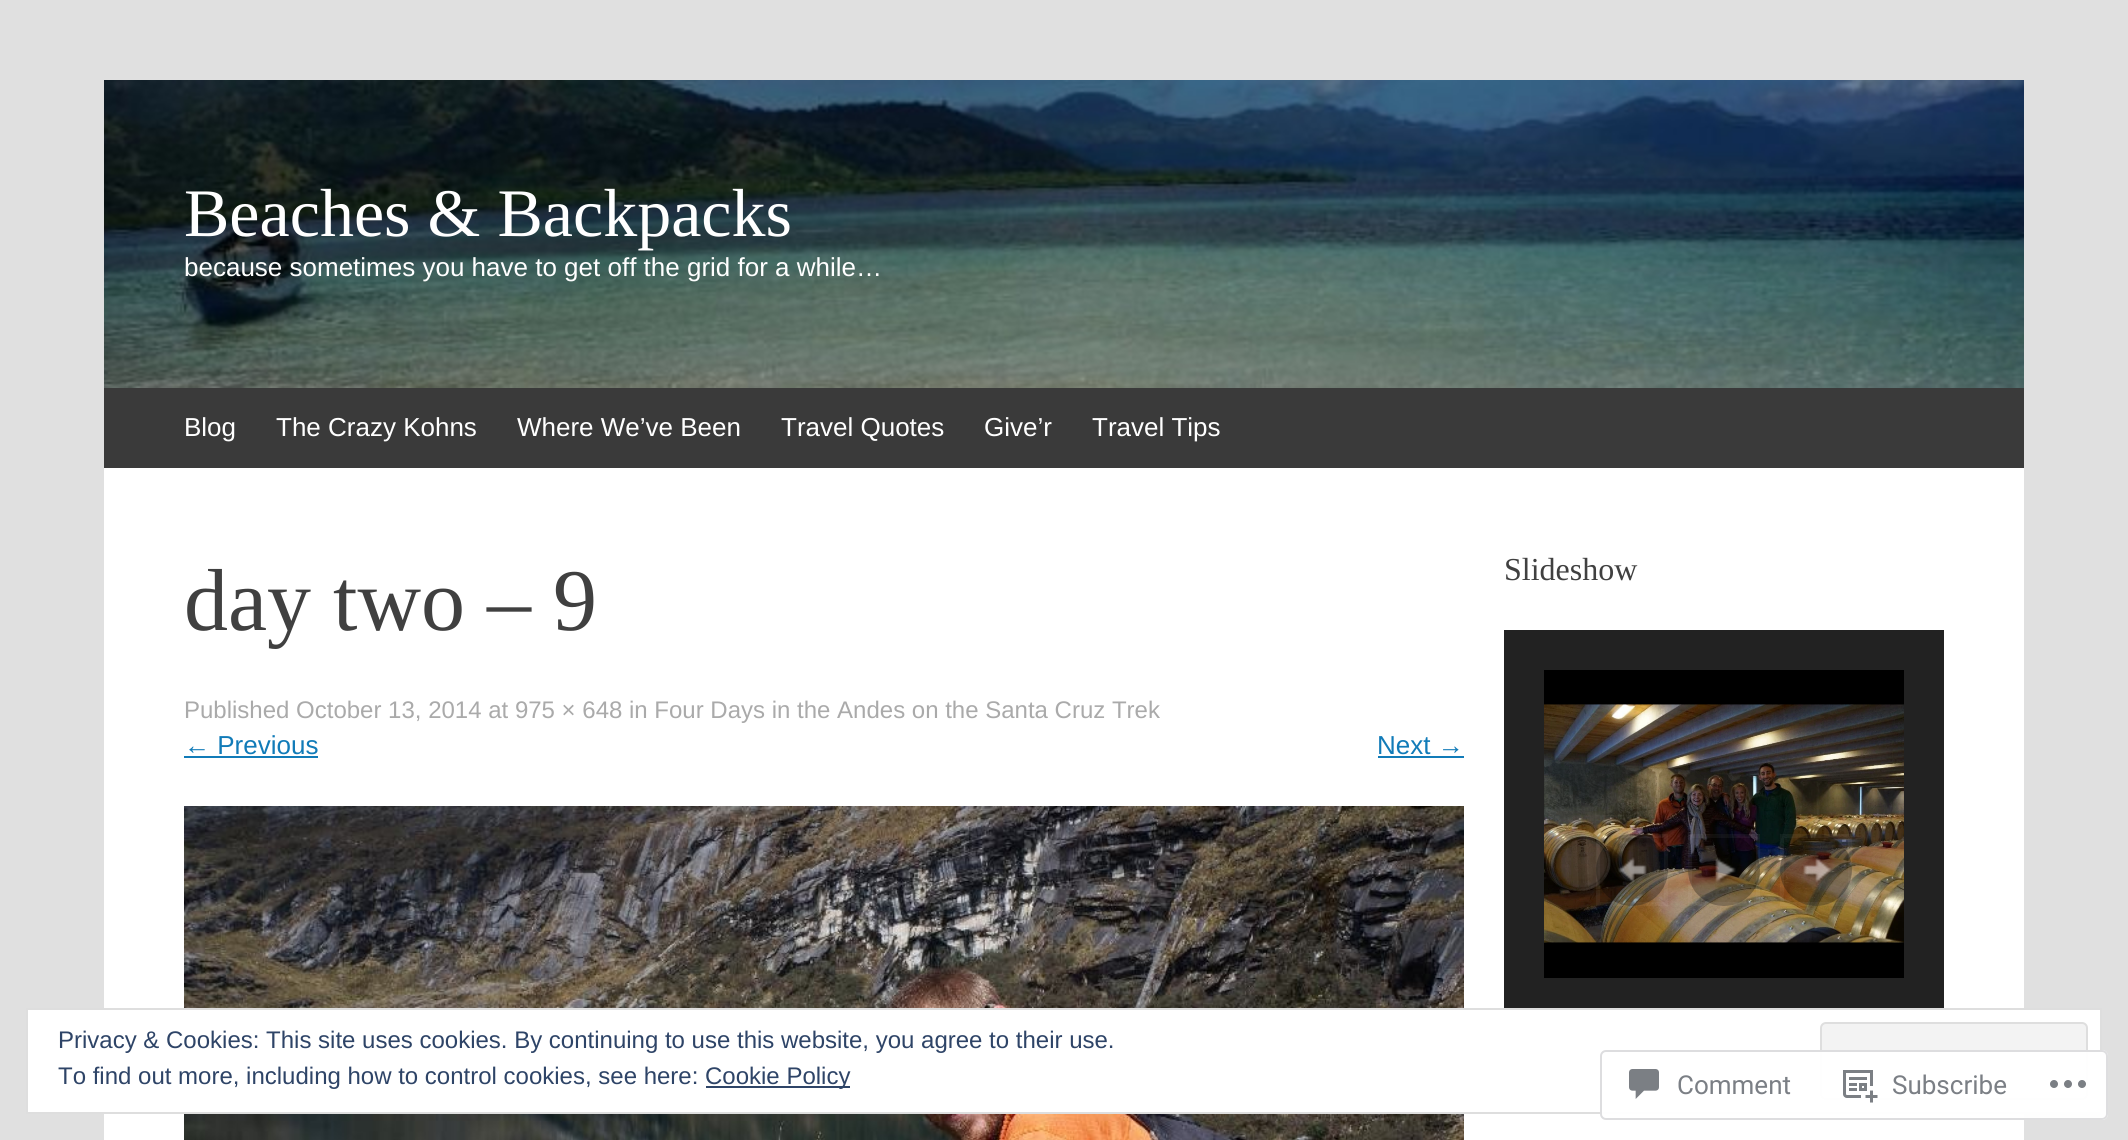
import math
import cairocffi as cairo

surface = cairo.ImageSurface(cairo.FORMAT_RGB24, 2128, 1140)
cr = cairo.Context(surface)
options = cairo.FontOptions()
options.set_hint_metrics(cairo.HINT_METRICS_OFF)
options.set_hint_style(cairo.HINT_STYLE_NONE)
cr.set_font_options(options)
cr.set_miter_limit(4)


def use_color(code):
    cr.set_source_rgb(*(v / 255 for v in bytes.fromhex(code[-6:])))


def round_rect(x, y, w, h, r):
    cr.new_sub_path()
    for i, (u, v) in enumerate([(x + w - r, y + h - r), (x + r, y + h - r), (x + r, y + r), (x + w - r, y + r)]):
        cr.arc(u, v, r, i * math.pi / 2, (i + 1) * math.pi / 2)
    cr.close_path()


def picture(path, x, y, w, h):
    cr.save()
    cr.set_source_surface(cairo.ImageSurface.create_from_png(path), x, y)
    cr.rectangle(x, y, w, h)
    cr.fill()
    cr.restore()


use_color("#e0e0e0")
cr.paint()
use_color("#ffffff")
cr.rectangle(104, 468, 1920, 672)
cr.fill()
picture("img1.png", 104, 80, 1920, 308)
cr.select_font_face("Liberation Serif")
cr.set_font_size(68)
cr.move_to(184, 236)
cr.show_text("Beaches & Backpacks")
cr.select_font_face("Liberation Sans")
cr.set_font_size(26)
cr.move_to(184, 276)
cr.show_text("because sometimes you have to get off the grid for a while…")
use_color("#3a3a3a")
cr.rectangle(104, 388, 1920, 80)
cr.fill()
use_color("#ffffff")
cr.move_to(184, 436)
cr.show_text("Blog")
cr.move_to(276, 436)
cr.show_text("The Crazy Kohns")
cr.move_to(517, 436)
cr.show_text("Where We’ve Been")
cr.move_to(781, 436)
cr.show_text("Travel Quotes")
cr.move_to(984, 436)
cr.show_text("Give’r")
cr.move_to(1092, 436)
cr.show_text("Travel Tips")
cr.select_font_face("Liberation Serif")
cr.set_font_size(88)
use_color("#404040")
cr.move_to(184, 630)
cr.show_text("day two – 9")
cr.select_font_face("Liberation Sans")
cr.set_font_size(24)
use_color("#aaaaaa")
cr.move_to(184, 718)
cr.show_text("Published October 13, 2014 at 975 × 648 in Four Days in the Andes on the Santa Cruz Trek")
cr.set_font_size(26)
use_color("#117bb8")
cr.move_to(184, 754)
cr.show_text("← Previous")
cr.rectangle(184, 756, 134, 2)
cr.fill()
cr.move_to(1377, 754)
cr.show_text("Next →")
cr.rectangle(1378, 756, 86, 2)
cr.fill()
picture("img2.png", 184, 806, 1280, 334)
cr.select_font_face("Liberation Serif")
cr.set_font_size(32)
use_color("#404040")
cr.move_to(1504, 580)
cr.show_text("Slideshow")
cr.rectangle(1524, 650, 400, 348)
use_color("#222222")
cr.set_line_width(40)
cr.stroke()
use_color("#000000")
cr.rectangle(1544, 670, 360, 308)
cr.fill()
picture("img3.png", 1544, 704, 360, 239)
cr.set_source_rgba(0, 0, 0, 0.3)
cr.arc(1632, 870, 36, 0, 2 * math.pi)
cr.fill()
picture("img4.png", 1618, 857, 31, 27)
cr.rectangle(1598, 836, 68, 68)
cr.set_source_rgba(1, 1, 1, 0.05)
cr.set_line_width(4)
cr.stroke()
cr.set_source_rgba(0, 0, 0, 0.3)
cr.arc(1724, 870, 36, 0, 2 * math.pi)
cr.fill()
picture("img5.png", 1715, 857, 21, 27)
cr.rectangle(1690, 836, 68, 68)
cr.set_source_rgba(1, 1, 1, 0.05)
cr.stroke()
cr.set_source_rgba(0, 0, 0, 0.3)
cr.arc(1816, 870, 36, 0, 2 * math.pi)
cr.fill()
picture("img6.png", 1803, 857, 31, 27)
cr.rectangle(1782, 836, 68, 68)
cr.set_source_rgba(1, 1, 1, 0.05)
cr.stroke()
use_color("#ffffff")
cr.rectangle(27, 1009, 2074, 104)
cr.fill_preserve()
use_color("#dedede")
cr.set_line_width(2)
cr.stroke()
cr.select_font_face("Liberation Sans")
cr.set_font_size(24)
use_color("#2e4467")
cr.move_to(58, 1048)
cr.show_text("Privacy & Cookies: This site uses cookies. By continuing to use this website, you agree to their use.")
use_color("#f3f3f3")
round_rect(1821, 1023, 266, 76, 5)
cr.fill_preserve()
use_color("#dedede")
cr.stroke()
use_color("#2e4467")
cr.move_to(58, 1084)
cr.show_text("To find out more, including how to control cookies, see here:")
cr.rectangle(706, 1086, 144, 2)
cr.fill()
cr.move_to(705, 1084)
cr.show_text("Cookie Policy")
cr.set_source_rgba(1, 1, 1, 0.98)
round_rect(1600, 1050, 508, 70, 6)
cr.fill()
round_rect(1601, 1051, 506, 68, 5)
cr.set_source_rgba(0.863, 0.863, 0.871, 0.98)
cr.stroke()
picture("img7.png", 1629, 1069, 30, 30)
cr.select_font_face("Roboto")
cr.set_font_size(26)
use_color("#7b7f85")
cr.move_to(1677, 1094)
cr.show_text("Comment")
picture("img8.png", 1843, 1070, 35, 33)
cr.move_to(1892, 1094)
cr.show_text("Subscribe")
picture("img9.png", 2050, 1080, 36, 8)
surface.write_to_png("result.png")
